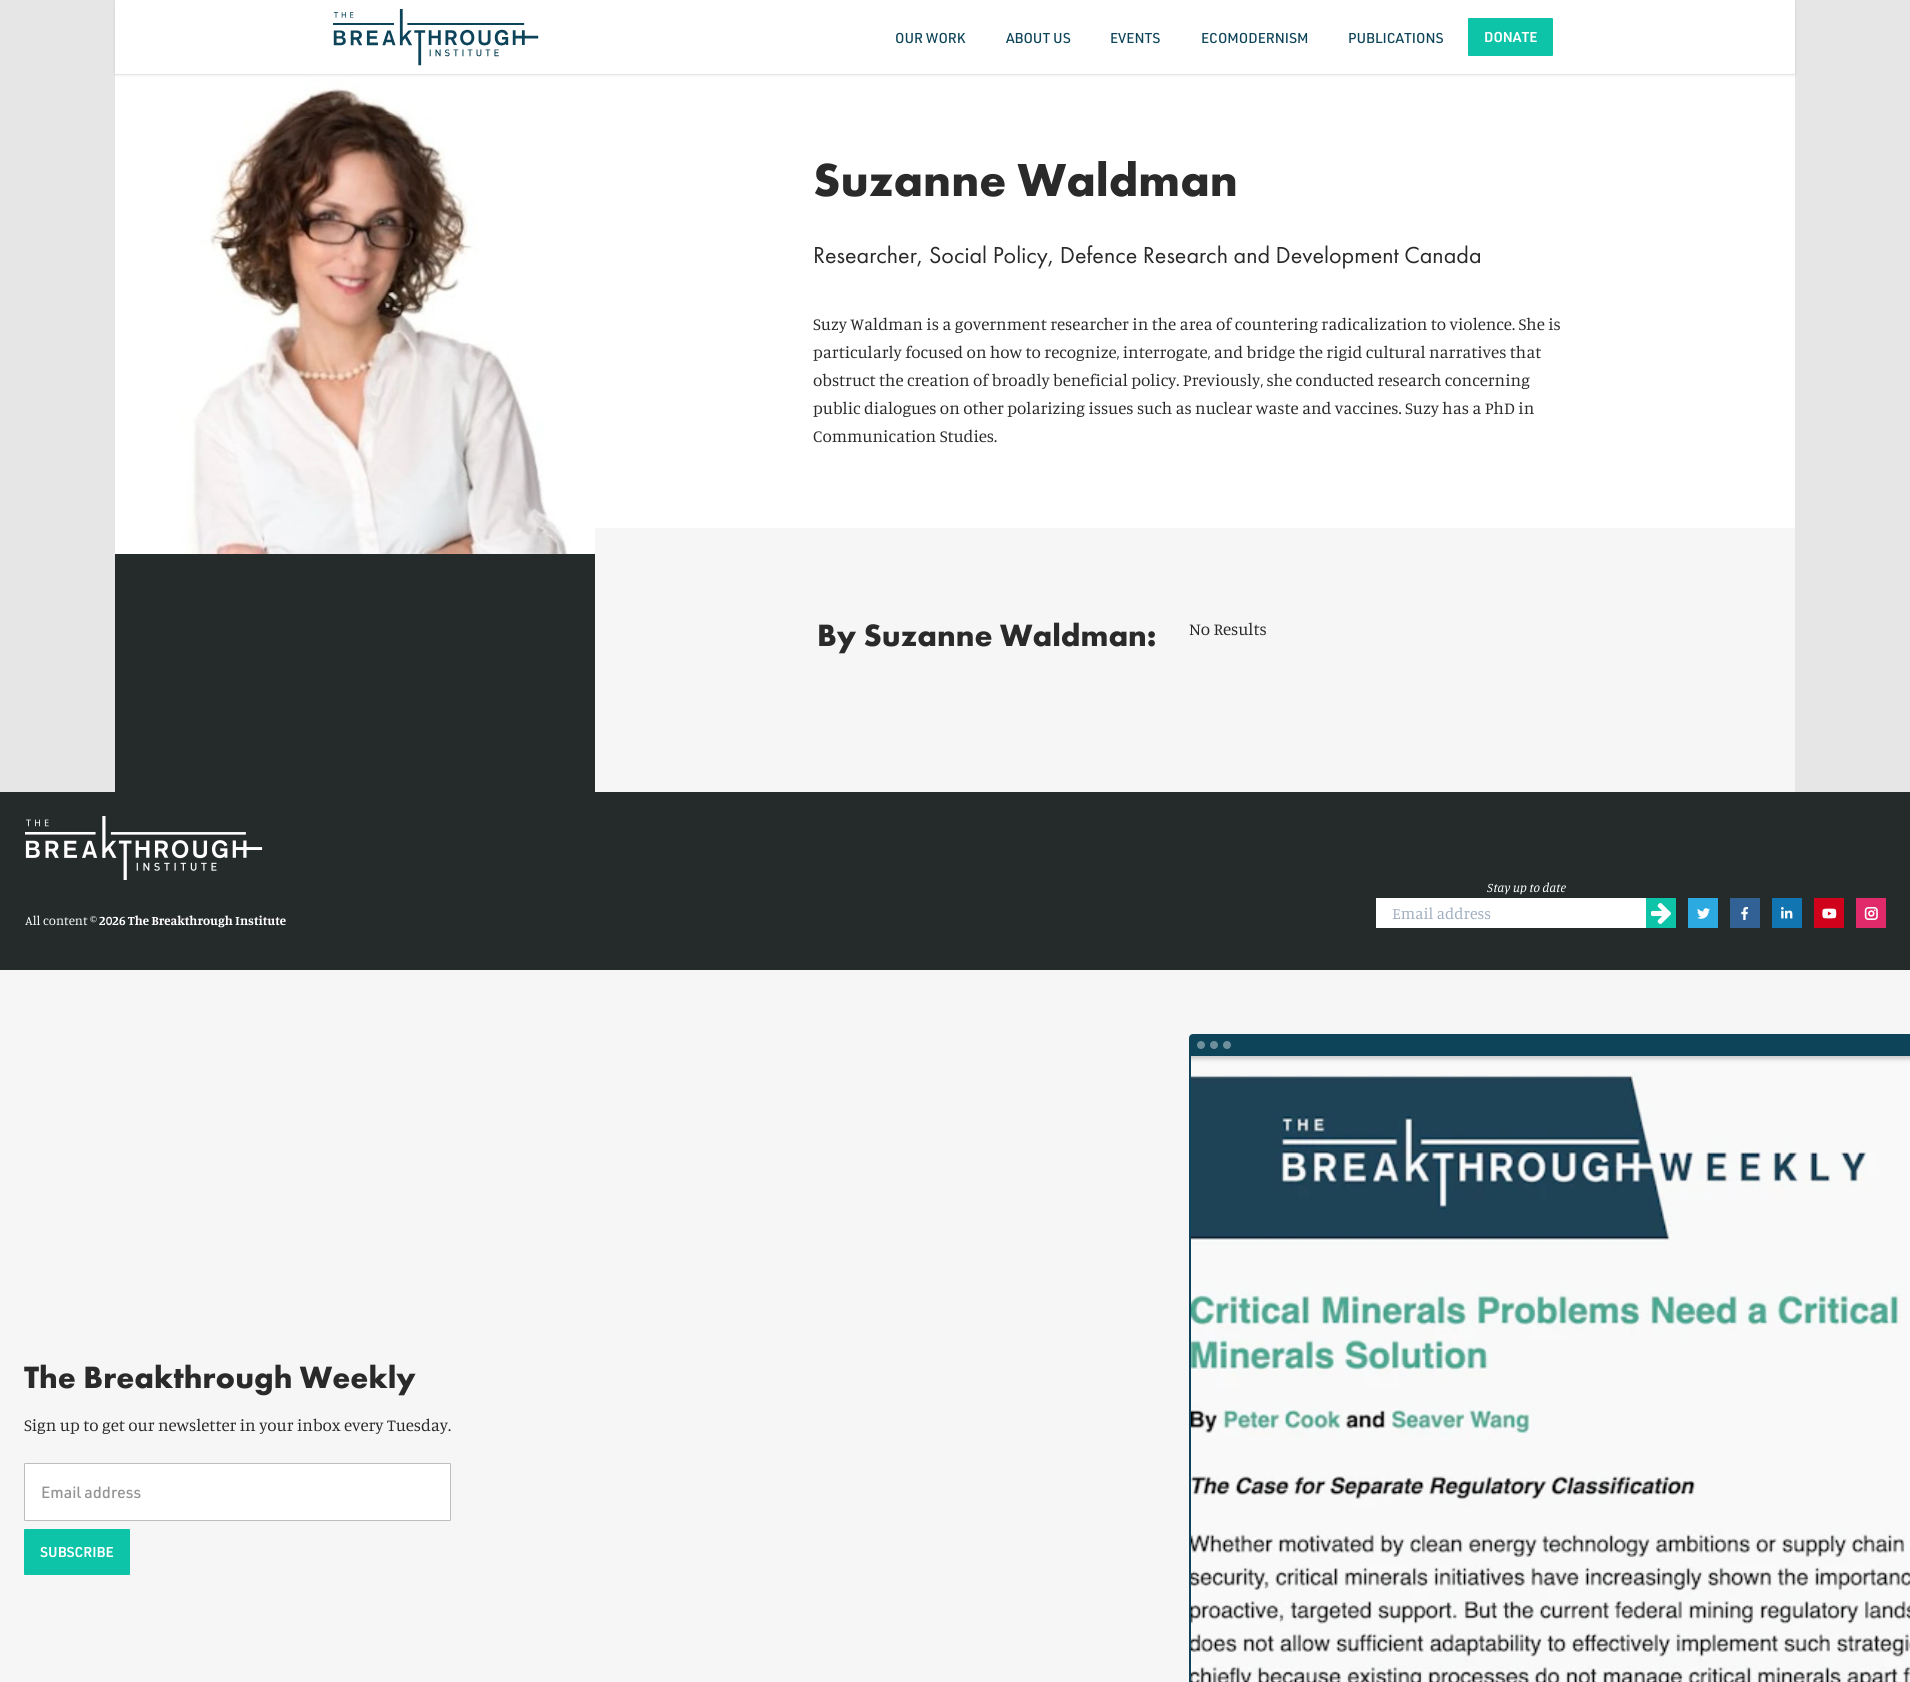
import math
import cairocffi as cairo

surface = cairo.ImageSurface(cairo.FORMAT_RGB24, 1910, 1682)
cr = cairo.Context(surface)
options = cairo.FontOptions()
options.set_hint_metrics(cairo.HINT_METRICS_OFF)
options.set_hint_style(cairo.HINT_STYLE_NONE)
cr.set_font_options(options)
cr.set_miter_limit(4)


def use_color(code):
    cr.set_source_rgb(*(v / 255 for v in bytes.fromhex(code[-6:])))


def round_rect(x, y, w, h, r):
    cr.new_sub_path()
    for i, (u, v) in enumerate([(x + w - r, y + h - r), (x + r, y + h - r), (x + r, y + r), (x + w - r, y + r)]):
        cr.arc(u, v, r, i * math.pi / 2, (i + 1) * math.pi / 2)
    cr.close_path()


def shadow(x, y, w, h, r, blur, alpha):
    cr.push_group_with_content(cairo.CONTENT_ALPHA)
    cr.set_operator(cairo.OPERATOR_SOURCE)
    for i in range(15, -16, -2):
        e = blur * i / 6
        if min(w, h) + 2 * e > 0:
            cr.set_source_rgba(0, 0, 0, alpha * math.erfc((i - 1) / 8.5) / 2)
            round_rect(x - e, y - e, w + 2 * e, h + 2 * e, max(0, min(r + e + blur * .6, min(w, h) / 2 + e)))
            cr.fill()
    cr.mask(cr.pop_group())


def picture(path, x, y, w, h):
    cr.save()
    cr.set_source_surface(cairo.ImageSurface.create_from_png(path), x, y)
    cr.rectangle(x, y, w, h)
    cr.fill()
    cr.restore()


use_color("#e6e6e6")
cr.paint()
use_color("#ffffff")
cr.rectangle(115, 0, 1680, 74)
cr.fill()
cr.rectangle(595, 74, 1200, 454)
cr.fill()
picture("img2.png", 115, 74, 480, 480)
cr.save()
cr.rectangle(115, 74, 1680, 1)
cr.clip()
use_color("#000000")
shadow(115, 1, 1680, 74, 0, 1, 0.06)
cr.restore()
cr.save()
cr.set_fill_rule(cairo.FILL_RULE_EVEN_ODD)
cr.new_path()
cr.move_to(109, 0)
cr.line_to(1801, 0)
cr.line_to(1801, 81)
cr.line_to(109, 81)
cr.close_path()
cr.move_to(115, 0)
cr.line_to(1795, 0)
cr.line_to(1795, 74)
cr.line_to(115, 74)
cr.close_path()
cr.clip()
use_color("#000000")
shadow(115, 1, 1680, 74, 0, 1.5, 0.1)
cr.restore()
picture("img1.png", 333, 9, 206, 57)
cr.select_font_face("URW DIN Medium")
cr.set_font_size(14)
use_color("#0d4459")
cr.move_to(895, 43)
cr.show_text("OUR WORK")
cr.move_to(1006, 43)
cr.show_text("ABOUT US")
cr.move_to(1110, 43)
cr.show_text("EVENTS")
cr.move_to(1201, 43)
cr.show_text("ECOMODERNISM")
cr.move_to(1348, 43)
cr.show_text("PUBLICATIONS")
use_color("#0dc3a8")
round_rect(1468, 18, 85, 38, 1)
cr.fill()
cr.select_font_face("URW DIN SemiBold")
use_color("#ffffff")
cr.move_to(1484, 42)
cr.show_text("DONATE")
use_color("#252a2b")
cr.rectangle(115, 554, 480, 238)
cr.fill()
cr.select_font_face("Futura PT", cairo.FONT_SLANT_NORMAL, cairo.FONT_WEIGHT_BOLD)
cr.set_font_size(48)
use_color("#2a2a2a")
cr.move_to(813, 196)
cr.show_text("Suzanne Waldman")
cr.select_font_face("Futura PT")
cr.set_font_size(24)
cr.move_to(813, 263)
cr.show_text("Researcher, Social Policy, Defence Research and Development Canada")
cr.select_font_face("Manuale")
cr.set_font_size(17)
cr.move_to(813, 330)
cr.show_text("Suzy Waldman is a government researcher in the area of countering radicalization to violence. She is")
cr.move_to(813, 358)
cr.show_text("particularly focused on how to recognize, interrogate, and bridge the rigid cultural narratives that")
cr.move_to(813, 386)
cr.show_text("obstruct the creation of broadly beneficial policy. Previously, she conducted research concerning")
cr.move_to(813, 414)
cr.show_text("public dialogues on other polarizing issues such as nuclear waste and vaccines. Suzy has a PhD in")
cr.move_to(813, 442)
cr.show_text("Communication Studies.")
use_color("#f6f6f6")
cr.rectangle(595, 528, 1200, 264)
cr.fill()
cr.select_font_face("Futura PT", cairo.FONT_SLANT_NORMAL, cairo.FONT_WEIGHT_BOLD)
cr.set_font_size(32)
use_color("#2a2a2a")
cr.move_to(817, 646)
cr.show_text("By Suzanne Waldman:")
cr.select_font_face("Manuale")
cr.set_font_size(17)
cr.move_to(1189, 635)
cr.show_text("No Results")
use_color("#252a2b")
cr.rectangle(0, 792, 1910, 178)
cr.fill()
picture("img3.png", 25, 816, 238, 64)
cr.select_font_face("Manuale", cairo.FONT_SLANT_ITALIC)
cr.set_font_size(13)
use_color("#ffffff")
cr.move_to(1487, 892)
cr.show_text("Stay up to date")
cr.rectangle(1376, 898, 270, 30)
cr.fill()
cr.select_font_face("Manuale")
cr.set_font_size(16)
use_color("#a0aec0")
cr.move_to(1392, 919)
cr.show_text("Email address")
use_color("#0dc3a8")
cr.rectangle(1646, 898, 30, 30)
cr.fill()
picture("img4.png", 1651, 903, 20, 21)
use_color("#2ba9e0")
cr.rectangle(1688, 898, 30, 30)
cr.fill()
picture("img5.png", 1697, 908, 13, 11)
use_color("#316195")
cr.rectangle(1730, 898, 30, 30)
cr.fill()
picture("img6.png", 1741, 907, 7, 13)
use_color("#1175b1")
cr.rectangle(1772, 898, 30, 30)
cr.fill()
picture("img7.png", 1781, 907, 12, 12)
use_color("#d0021b")
cr.rectangle(1814, 898, 30, 30)
cr.fill()
picture("img8.png", 1822, 908, 15, 11)
use_color("#e12a69")
cr.rectangle(1856, 898, 30, 30)
cr.fill()
picture("img9.png", 1864, 907, 14, 13)
cr.set_font_size(13)
use_color("#ffffff")
cr.move_to(25, 925)
cr.show_text("All content ©")
cr.select_font_face("Manuale", cairo.FONT_SLANT_NORMAL, cairo.FONT_WEIGHT_BOLD)
cr.move_to(99, 925)
cr.show_text("2026 The Breakthrough Institute")
use_color("#f6f6f6")
cr.rectangle(0, 970, 1910, 712)
cr.fill()
cr.select_font_face("Futura PT", cairo.FONT_SLANT_NORMAL, cairo.FONT_WEIGHT_BOLD)
cr.set_font_size(32)
use_color("#2a2a2a")
cr.move_to(24, 1388)
cr.show_text("The Breakthrough Weekly")
cr.select_font_face("Manuale")
cr.set_font_size(17)
cr.move_to(24, 1431)
cr.show_text("Sign up to get our newsletter in your inbox every Tuesday.")
use_color("#ffffff")
round_rect(24.5, 1463.5, 426, 57, 0.5)
cr.fill_preserve()
use_color("#bdbdbd")
cr.set_line_width(1)
cr.stroke()
cr.select_font_face("URW DIN Medium")
cr.set_font_size(16)
use_color("#949494")
cr.move_to(41, 1498)
cr.show_text("Email address")
use_color("#0dc3a8")
round_rect(24, 1529, 106, 46, 1)
cr.fill()
cr.select_font_face("URW DIN SemiBold")
cr.set_font_size(14)
use_color("#ffffff")
cr.move_to(40, 1557)
cr.show_text("SUBSCRIBE")
round_rect(1190, 1035, 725, 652, 3)
use_color("#0d4459")
cr.set_line_width(2)
cr.stroke()
cr.rectangle(1191, 1036, 719, 20)
cr.fill()
picture("img10.png", 1197, 1041, 34, 8)
picture("img11.png", 1191, 1056, 719, 626)
surface.write_to_png("result.png")
